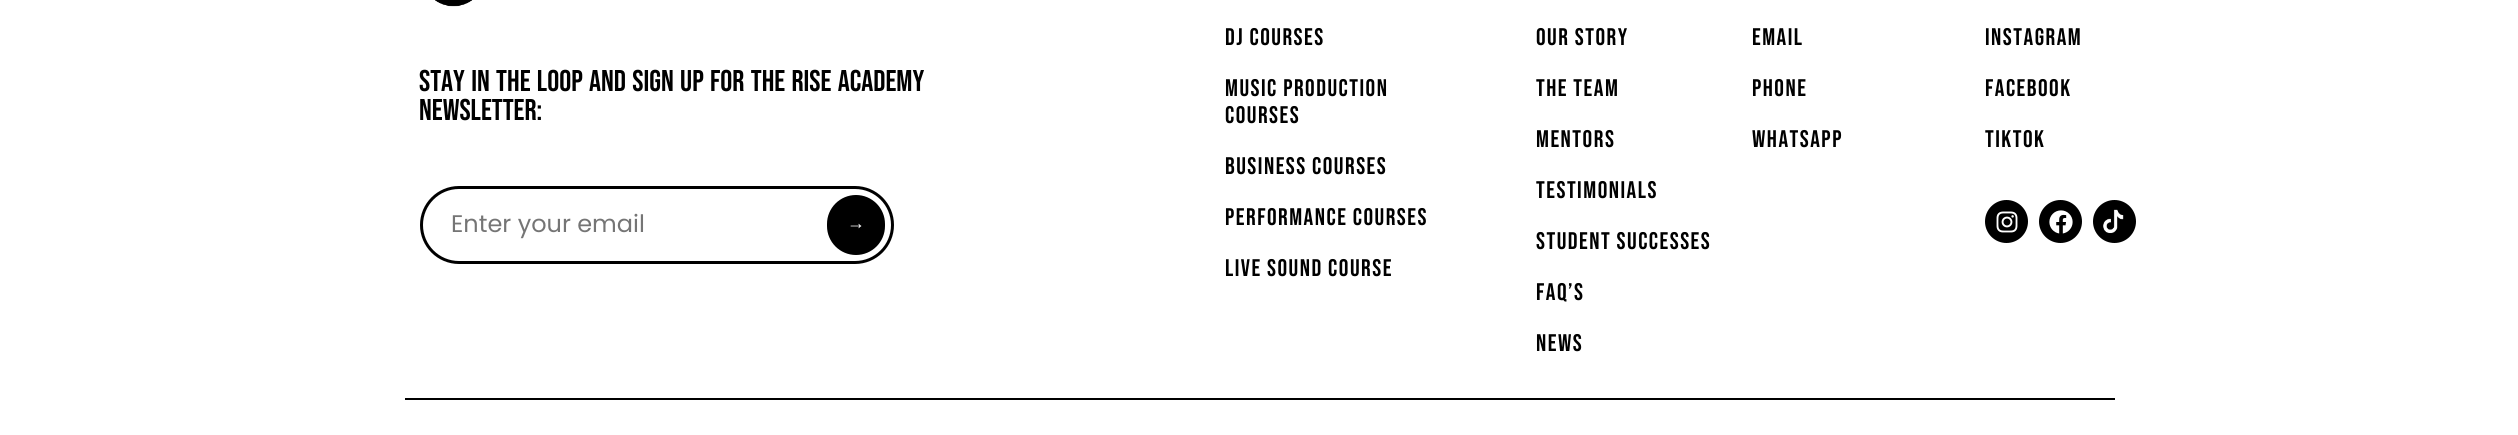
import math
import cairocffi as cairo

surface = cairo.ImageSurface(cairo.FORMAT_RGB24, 2518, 435)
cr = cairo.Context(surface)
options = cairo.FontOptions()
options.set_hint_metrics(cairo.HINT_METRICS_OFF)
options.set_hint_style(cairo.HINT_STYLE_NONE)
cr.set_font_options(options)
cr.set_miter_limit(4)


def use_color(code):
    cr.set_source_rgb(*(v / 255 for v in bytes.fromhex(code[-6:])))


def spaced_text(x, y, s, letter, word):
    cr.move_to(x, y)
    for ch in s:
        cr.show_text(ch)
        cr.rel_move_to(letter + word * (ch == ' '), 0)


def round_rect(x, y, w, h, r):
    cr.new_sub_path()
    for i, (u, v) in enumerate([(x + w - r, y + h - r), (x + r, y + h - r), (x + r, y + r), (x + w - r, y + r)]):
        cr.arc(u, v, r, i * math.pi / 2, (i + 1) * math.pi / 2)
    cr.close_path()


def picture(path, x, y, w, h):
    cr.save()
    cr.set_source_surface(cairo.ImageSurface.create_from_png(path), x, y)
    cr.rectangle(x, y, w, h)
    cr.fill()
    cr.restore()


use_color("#ffffff")
cr.paint()
picture("img1.png", 435, 0, 38, 7)
cr.select_font_face("Bebas Neue")
cr.set_font_size(30)
use_color("#000000")
spaced_text(419, 91, "Stay in the loop and sign up for the RISE Academy", 0, 1.5)
cr.move_to(419, 120)
cr.show_text("newsletter:")
round_rect(421.5, 187.5, 471, 75, 37.5)
cr.set_line_width(3)
cr.stroke()
cr.select_font_face("Poppins")
cr.set_font_size(24)
use_color("#757575")
cr.move_to(451, 232)
cr.show_text("Enter your email")
use_color("#000000")
round_rect(827, 195, 58, 60, 29)
cr.fill()
cr.select_font_face("Liberation Sans")
cr.set_font_size(18)
use_color("#ffffff")
cr.move_to(847, 229)
cr.show_text("→")
cr.select_font_face("Bebas Neue")
cr.set_font_size(24)
use_color("#000000")
spaced_text(1225, 45, "dj courses", 1.5, 0)
spaced_text(1225, 96, "music production", 1.5, 0)
spaced_text(1225, 123, "COURSES", 1.5, 0)
spaced_text(1225, 174, "business COURSES", 1.5, 0)
spaced_text(1225, 225, "performance COURSES", 1.5, 0)
spaced_text(1225, 276, "live sound COURSE", 1.5, 0)
spaced_text(1536, 45, "Our Story", 1.5, 0)
spaced_text(1536, 96, "The Team", 1.5, 0)
spaced_text(1536, 147, "Mentors", 1.5, 0)
spaced_text(1536, 198, "Testimonials", 1.5, 0)
spaced_text(1536, 249, "STUDENT successes", 1.5, 0)
spaced_text(1536, 300, "FAQ’s", 1.5, 0)
spaced_text(1536, 351, "News", 1.5, 0)
spaced_text(1752, 45, "EMAIL", 1.5, 0)
spaced_text(1752, 96, "PHONE", 1.5, 0)
spaced_text(1752, 147, "WHATSAPP", 1.5, 0)
spaced_text(1985, 45, "INSTAGRAM", 1.5, 0)
spaced_text(1985, 96, "FACEBOOK", 1.5, 0)
spaced_text(1985, 147, "TIKTOK", 1.5, 0)
cr.new_path()
cr.arc(2006.5, 221.5, 21.5, 0, 2 * math.pi)
cr.fill()
picture("img2.png", 1996, 211, 22, 22)
cr.arc(2060.5, 221.5, 21.5, 0, 2 * math.pi)
cr.fill()
picture("img3.png", 2049, 210, 24, 24)
cr.arc(2114.5, 221.5, 21.5, 0, 2 * math.pi)
cr.fill()
picture("img4.png", 2103, 209, 21, 25)
cr.rectangle(405, 398, 1710, 2)
cr.fill()
surface.write_to_png("result.png")
